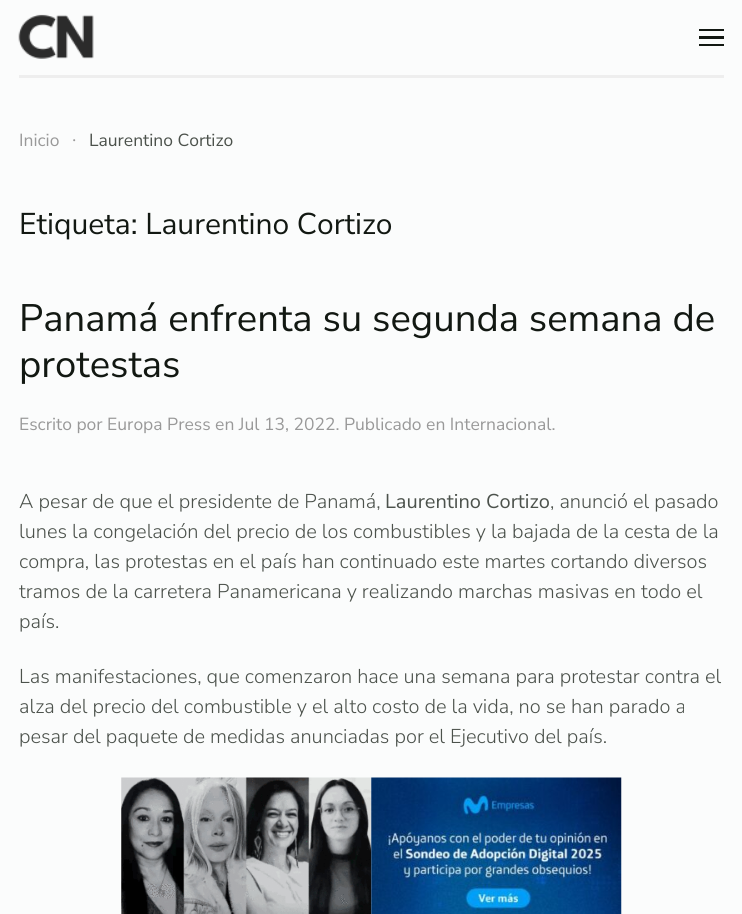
import math
import cairocffi as cairo

surface = cairo.ImageSurface(cairo.FORMAT_RGB24, 742, 914)
cr = cairo.Context(surface)
options = cairo.FontOptions()
options.set_hint_metrics(cairo.HINT_METRICS_OFF)
options.set_hint_style(cairo.HINT_STYLE_NONE)
cr.set_font_options(options)
cr.set_miter_limit(4)


def use_color(code):
    cr.set_source_rgb(*(v / 255 for v in bytes.fromhex(code[-6:])))


def picture(path, x, y, w, h):
    cr.save()
    cr.set_source_surface(cairo.ImageSurface.create_from_png(path), x, y)
    cr.rectangle(x, y, w, h)
    cr.fill()
    cr.restore()


use_color("#fbfcfc")
cr.paint()
use_color("#eeeeee")
cr.rectangle(19, 75, 705, 3)
cr.fill()
picture("img1.png", 18, 14, 76, 45)
use_color("#121812")
cr.rectangle(699, 29, 25, 2)
cr.fill()
cr.rectangle(699, 36, 25, 3)
cr.fill()
cr.rectangle(699, 44, 25, 2)
cr.fill()
cr.select_font_face("Nunito Sans ExtraLight")
cr.set_font_size(17.5)
use_color("#999999")
cr.move_to(19, 146)
cr.show_text("Inicio")
cr.select_font_face("Liberation Serif")
cr.move_to(72, 146)
cr.show_text("∙")
cr.select_font_face("Nunito Sans ExtraLight")
use_color("#4c524c")
cr.move_to(89, 146)
cr.show_text("Laurentino Cortizo")
cr.set_font_size(30)
use_color("#121812")
cr.move_to(19, 234)
cr.show_text("Etiqueta: Laurentino Cortizo")
cr.set_font_size(38.25)
cr.move_to(19, 331)
cr.show_text("Panamá enfrenta su segunda semana de")
cr.move_to(19, 377)
cr.show_text("protestas")
cr.set_font_size(17.5)
use_color("#999999")
cr.move_to(19, 430)
cr.show_text("Escrito por Europa Press en Jul 13, 2022. Publicado en Internacional.")
cr.select_font_face("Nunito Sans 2 ExtraLight")
cr.set_font_size(20)
use_color("#4c524c")
cr.move_to(19, 508)
cr.show_text("A pesar de que el presidente de Panamá,")
cr.select_font_face("Nunito Sans ExtraLight")
cr.move_to(385, 508)
cr.show_text("Laurentino Cortizo")
cr.select_font_face("Nunito Sans 2 ExtraLight")
cr.move_to(550, 508)
cr.show_text(", anunció el pasado")
cr.move_to(19, 538)
cr.show_text("lunes la congelación del precio de los combustibles y la bajada de la cesta de la")
cr.move_to(19, 568)
cr.show_text("compra, las protestas en el país han continuado este martes cortando diversos")
cr.move_to(19, 598)
cr.show_text("tramos de la carretera Panamericana y realizando marchas masivas en todo el")
cr.move_to(19, 628)
cr.show_text("país.")
cr.move_to(19, 683)
cr.show_text("Las manifestaciones, que comenzaron hace una semana para protestar contra el")
cr.move_to(19, 713)
cr.show_text("alza del precio del combustible y el alto costo de la vida, no se han parado a")
cr.move_to(19, 743)
cr.show_text("pesar del paquete de medidas anunciadas por el Ejecutivo del país.")
picture("img2.png", 121, 777, 251, 137)
picture("img3.png", 371, 777, 251, 137)
surface.write_to_png("result.png")
